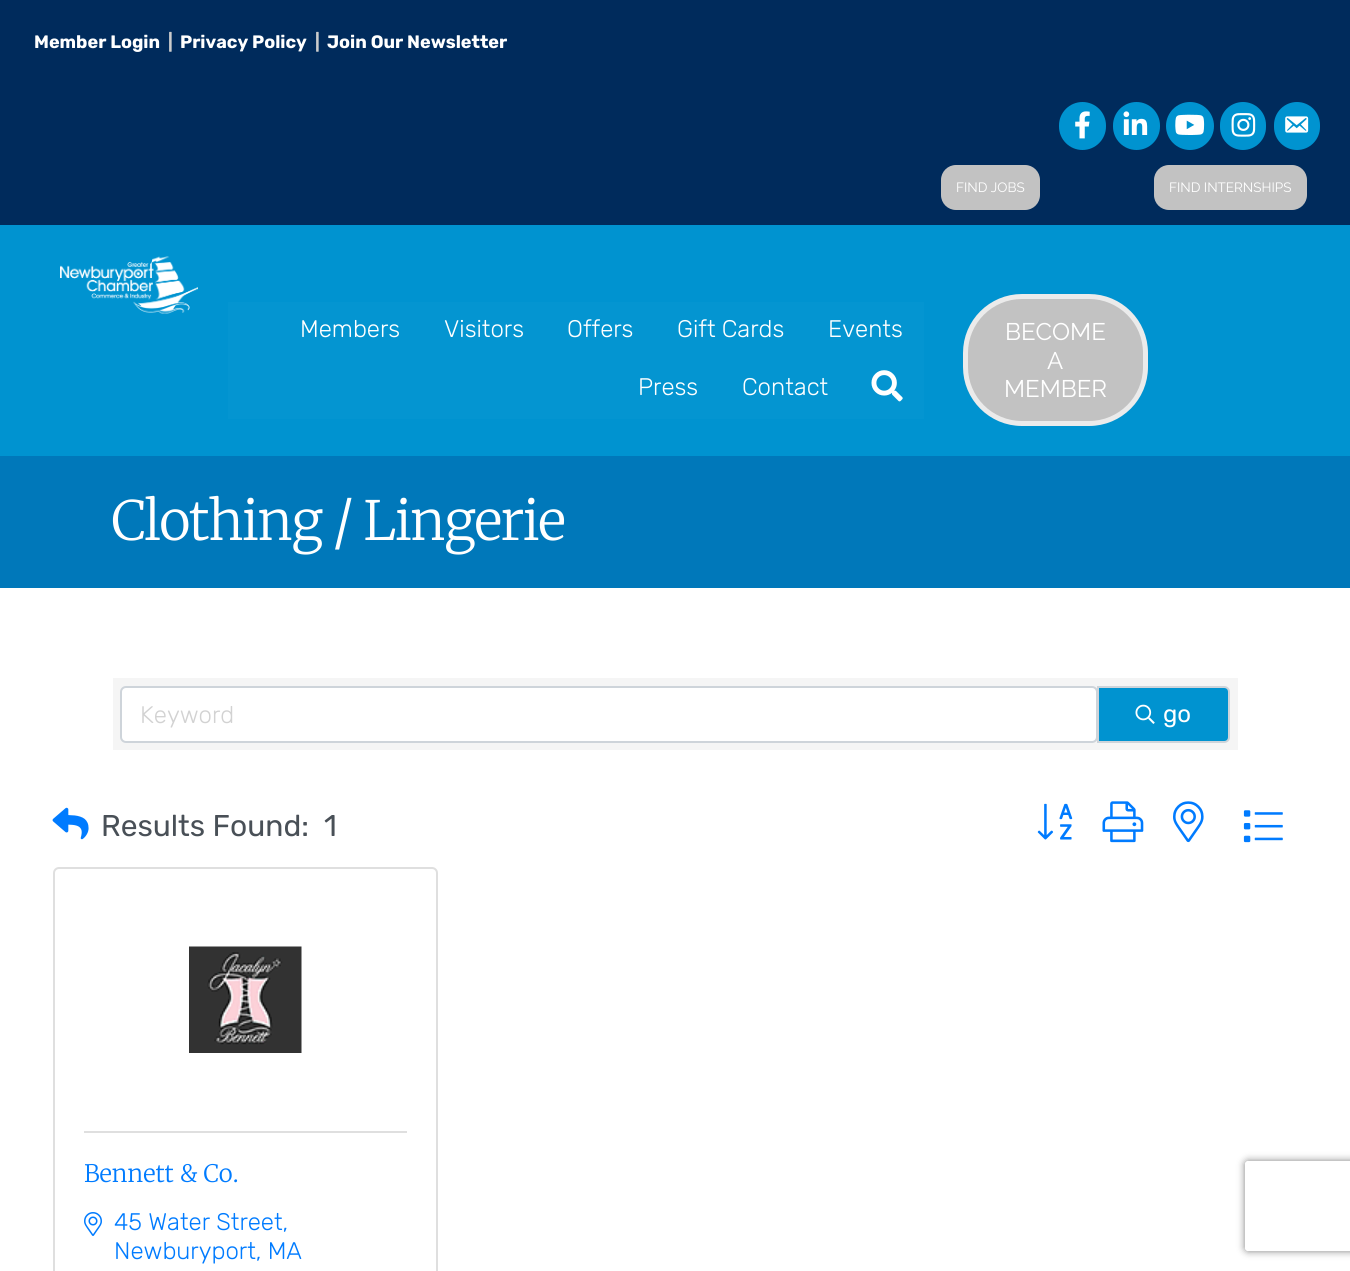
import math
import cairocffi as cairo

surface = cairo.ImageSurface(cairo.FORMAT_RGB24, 1350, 1271)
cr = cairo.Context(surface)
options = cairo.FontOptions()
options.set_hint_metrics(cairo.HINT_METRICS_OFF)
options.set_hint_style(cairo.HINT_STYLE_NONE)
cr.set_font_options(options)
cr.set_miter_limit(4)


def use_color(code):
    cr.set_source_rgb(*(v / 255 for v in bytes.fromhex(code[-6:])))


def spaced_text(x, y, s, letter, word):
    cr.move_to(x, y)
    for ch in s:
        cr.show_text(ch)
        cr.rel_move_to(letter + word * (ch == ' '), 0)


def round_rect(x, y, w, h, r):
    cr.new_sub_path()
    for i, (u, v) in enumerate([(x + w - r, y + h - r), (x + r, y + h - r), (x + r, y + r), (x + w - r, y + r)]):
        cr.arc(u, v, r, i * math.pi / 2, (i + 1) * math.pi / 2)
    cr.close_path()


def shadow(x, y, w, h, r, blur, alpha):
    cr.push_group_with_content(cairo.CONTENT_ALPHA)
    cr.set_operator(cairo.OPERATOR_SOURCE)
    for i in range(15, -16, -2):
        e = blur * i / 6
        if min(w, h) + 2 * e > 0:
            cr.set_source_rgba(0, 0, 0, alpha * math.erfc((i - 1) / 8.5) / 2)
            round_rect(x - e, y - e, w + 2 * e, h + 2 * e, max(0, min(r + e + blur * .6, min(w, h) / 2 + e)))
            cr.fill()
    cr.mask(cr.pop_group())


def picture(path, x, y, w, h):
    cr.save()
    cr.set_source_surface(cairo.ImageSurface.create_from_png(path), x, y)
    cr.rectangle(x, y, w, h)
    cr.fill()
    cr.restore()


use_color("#ffffff")
cr.paint()
use_color("#002b5c")
cr.rectangle(0, 0, 1350, 225)
cr.fill()
cr.select_font_face("Rubik", cairo.FONT_SLANT_NORMAL, cairo.FONT_WEIGHT_BOLD)
cr.set_font_size(18)
use_color("#ffffff")
cr.move_to(34, 48)
cr.show_text("Member Login")
use_color("#cccccc")
cr.move_to(168, 48)
cr.show_text("|")
use_color("#ffffff")
cr.move_to(180, 48)
cr.show_text("Privacy Policy")
use_color("#cccccc")
cr.move_to(315, 48)
cr.show_text("|")
use_color("#ffffff")
cr.move_to(327, 48)
cr.show_text("Join Our Newsletter")
use_color("#0093d0")
round_rect(1059, 102, 47, 48, 23.5)
cr.fill()
picture("img1.png", 1075, 111, 15, 28)
round_rect(1113, 102, 47, 48, 23.5)
cr.fill()
picture("img2.png", 1123, 111, 25, 24)
cr.arc(1190, 126, 24, 0, 2 * math.pi)
cr.fill()
picture("img3.png", 1175, 114, 30, 21)
round_rect(1220, 102, 46, 48, 23)
cr.fill()
picture("img4.png", 1231, 113, 25, 24)
round_rect(1274, 102, 46, 48, 23)
cr.fill()
picture("img5.png", 1285, 116, 24, 17)
use_color("#c2c2c2")
round_rect(941, 165, 99, 45, 15)
cr.fill()
cr.select_font_face("Raleway Thin")
cr.set_font_size(13.5)
use_color("#ffffff")
cr.move_to(956, 192)
cr.show_text("FIND JOBS")
use_color("#c2c2c2")
round_rect(1154, 165, 153, 45, 15)
cr.fill()
use_color("#ffffff")
cr.move_to(1169, 192)
cr.show_text("FIND INTERNSHIPS")
use_color("#0093d0")
cr.rectangle(0, 225, 1350, 231)
cr.fill()
picture("img6.png", 60, 256, 138, 58)
use_color("#0495d1")
cr.rectangle(228, 302, 696, 117)
cr.fill()
cr.select_font_face("Rubik Light")
cr.set_font_size(24)
use_color("#ffffff")
cr.move_to(300, 337)
cr.show_text("Members")
cr.move_to(444, 337)
cr.show_text("Visitors")
cr.move_to(567, 337)
cr.show_text("Offers")
cr.move_to(677, 337)
cr.show_text("Gift Cards")
cr.move_to(828, 337)
cr.show_text("Events")
cr.move_to(638, 395)
cr.show_text("Press")
cr.move_to(742, 395)
cr.show_text("Contact")
picture("img7.png", 871, 370, 32, 32)
use_color("#c2c2c2")
round_rect(965.5, 296.5, 180, 127, 56.5)
cr.fill_preserve()
use_color("#ebebeb")
cr.set_line_width(5)
cr.stroke()
cr.select_font_face("Raleway Thin")
use_color("#ffffff")
cr.move_to(1005, 340)
cr.show_text("BECOME")
cr.move_to(1047, 369)
cr.show_text("A")
cr.move_to(1004, 397)
cr.show_text("MEMBER")
use_color("#0078ba")
cr.rectangle(0, 456, 1350, 132)
cr.fill()
cr.select_font_face("Merriweather Light")
cr.set_font_size(54)
use_color("#ffffff")
spaced_text(111, 540, "Clothing / Lingerie", -1.5, 0)
use_color("#f5f5f5")
cr.rectangle(113, 678, 1125, 72)
cr.fill()
use_color("#ffffff")
round_rect(121, 687, 976, 55, 5)
cr.fill_preserve()
use_color("#ced4da")
cr.set_line_width(2)
cr.stroke()
cr.select_font_face("Rubik Light")
cr.set_font_size(24)
use_color("#d2d2d2")
cr.move_to(140, 723)
cr.show_text("Keyword")
use_color("#0093d0")
cr.new_path()
cr.move_to(1098, 687)
cr.line_to(1224, 687)
cr.curve_to(1227, 687, 1229, 689, 1229, 692)
cr.line_to(1229, 737)
cr.curve_to(1229, 740, 1227, 742, 1224, 742)
cr.line_to(1098, 742)
cr.close_path()
cr.fill_preserve()
use_color("#ced4da")
cr.stroke()
picture("img8.png", 1135, 704, 20, 20)
cr.select_font_face("Rubik")
use_color("#ffffff")
cr.move_to(1163, 722)
cr.show_text("go")
picture("img9.png", 52, 807, 37, 33)
cr.set_font_size(30)
use_color("#495057")
cr.move_to(101, 836)
cr.show_text("Results Found:")
cr.move_to(324, 836)
cr.show_text("1")
picture("img10.png", 1037, 803, 36, 37)
picture("img11.png", 1102, 801, 42, 42)
picture("img12.png", 1173, 801, 31, 42)
picture("img13.png", 1243, 810, 40, 33)
round_rect(54, 868, 383, 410, 5)
use_color("#dfdfdf")
cr.stroke()
picture("img14.png", 189, 946, 113, 107)
cr.rectangle(84, 1131, 323, 2)
cr.fill()
cr.select_font_face("Merriweather Light")
cr.set_font_size(24)
use_color("#007bff")
cr.move_to(84, 1182)
cr.show_text("Bennett & Co.")
picture("img15.png", 84, 1212, 18, 24)
cr.select_font_face("Rubik Light")
cr.move_to(114, 1230)
cr.show_text("45 Water Street,")
cr.move_to(114, 1259)
cr.show_text("Newburyport, MA")
cr.save()
cr.set_fill_rule(cairo.FILL_RULE_EVEN_ODD)
cr.new_path()
cr.move_to(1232, 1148)
cr.line_to(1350, 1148)
cr.line_to(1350, 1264)
cr.line_to(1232, 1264)
cr.close_path()
cr.move_to(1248, 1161)
cr.line_to(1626, 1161)
cr.curve_to(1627.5, 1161, 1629, 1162.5, 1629, 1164)
cr.line_to(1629, 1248)
cr.curve_to(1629, 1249.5, 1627.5, 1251, 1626, 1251)
cr.line_to(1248, 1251)
cr.curve_to(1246.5, 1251, 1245, 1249.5, 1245, 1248)
cr.line_to(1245, 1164)
cr.curve_to(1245, 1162.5, 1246.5, 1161, 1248, 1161)
cr.close_path()
cr.clip()
use_color("#808080")
shadow(1245, 1161, 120, 90, 3, 4, 1)
cr.restore()
surface.write_to_png("result.png")
